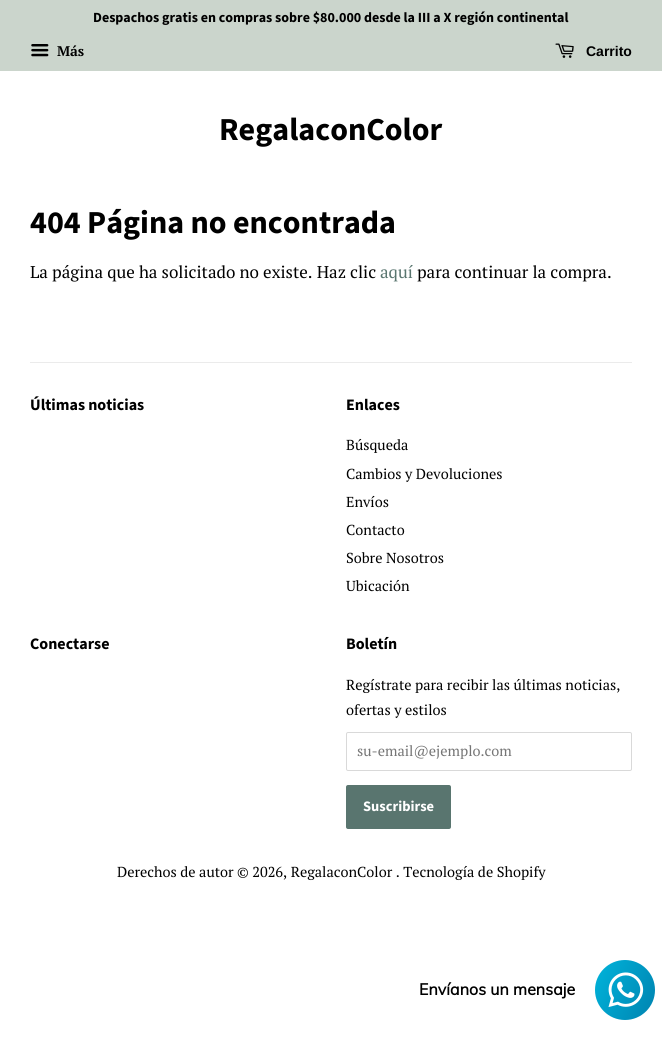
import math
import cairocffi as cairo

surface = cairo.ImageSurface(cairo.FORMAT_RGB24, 662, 1040)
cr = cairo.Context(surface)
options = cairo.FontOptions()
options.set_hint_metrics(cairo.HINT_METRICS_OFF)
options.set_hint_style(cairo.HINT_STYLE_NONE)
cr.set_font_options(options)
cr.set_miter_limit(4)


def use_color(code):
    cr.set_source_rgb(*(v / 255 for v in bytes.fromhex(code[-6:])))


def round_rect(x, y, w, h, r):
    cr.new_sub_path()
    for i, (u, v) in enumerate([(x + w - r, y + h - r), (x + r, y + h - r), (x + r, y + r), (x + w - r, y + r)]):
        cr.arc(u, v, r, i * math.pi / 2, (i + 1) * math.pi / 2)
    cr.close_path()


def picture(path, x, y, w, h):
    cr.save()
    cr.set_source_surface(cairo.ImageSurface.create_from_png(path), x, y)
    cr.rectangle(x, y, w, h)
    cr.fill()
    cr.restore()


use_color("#ffffff")
cr.paint()
use_color("#cbd5cc")
cr.rectangle(0, 0, 662, 71)
cr.fill()
cr.select_font_face("Source Sans Pro", cairo.FONT_SLANT_NORMAL, cairo.FONT_WEIGHT_BOLD)
cr.set_font_size(14)
use_color("#000000")
cr.move_to(93, 22)
cr.show_text("Despachos gratis en compras sobre $80.000 desde la III a X región continental")
picture("img1.png", 31, 44, 18, 13)
cr.select_font_face("PT Serif", cairo.FONT_SLANT_NORMAL, cairo.FONT_WEIGHT_BOLD)
cr.move_to(57, 56)
cr.show_text("Más")
picture("img2.png", 555, 43, 19, 15)
cr.select_font_face("Liberation Sans", cairo.FONT_SLANT_NORMAL, cairo.FONT_WEIGHT_BOLD)
cr.move_to(586, 56)
cr.show_text("Carrito")
cr.select_font_face("Source Sans Pro", cairo.FONT_SLANT_NORMAL, cairo.FONT_WEIGHT_BOLD)
cr.set_font_size(32)
cr.move_to(219, 140)
cr.show_text("RegalaconColor")
cr.move_to(30, 233)
cr.show_text("404 Página no encontrada")
cr.select_font_face("PT Serif")
cr.set_font_size(17)
cr.move_to(30, 278)
cr.show_text("La página que ha solicitado no existe. Haz clic")
use_color("#59756f")
cr.move_to(380, 278)
cr.show_text("aquí")
use_color("#000000")
cr.move_to(417, 278)
cr.show_text("para continuar la compra.")
use_color("#ebebeb")
cr.rectangle(30, 362, 602, 1)
cr.fill()
cr.select_font_face("Source Sans Pro", cairo.FONT_SLANT_NORMAL, cairo.FONT_WEIGHT_BOLD)
cr.set_font_size(16)
use_color("#000000")
cr.move_to(30, 410)
cr.show_text("Últimas noticias")
cr.move_to(346, 410)
cr.show_text("Enlaces")
cr.select_font_face("PT Serif")
cr.set_font_size(14.45)
cr.move_to(346, 450)
cr.show_text("Búsqueda")
cr.move_to(346, 479)
cr.show_text("Cambios y Devoluciones")
cr.move_to(346, 507)
cr.show_text("Envíos")
cr.move_to(346, 535)
cr.show_text("Contacto")
cr.move_to(346, 563)
cr.show_text("Sobre Nosotros")
cr.move_to(346, 591)
cr.show_text("Ubicación")
cr.select_font_face("Source Sans Pro", cairo.FONT_SLANT_NORMAL, cairo.FONT_WEIGHT_BOLD)
cr.set_font_size(16)
cr.move_to(30, 649)
cr.show_text("Conectarse")
cr.move_to(346, 649)
cr.show_text("Boletín")
cr.select_font_face("PT Serif")
cr.set_font_size(14.45)
cr.move_to(346, 690)
cr.show_text("Regístrate para recibir las últimas noticias,")
cr.move_to(346, 715)
cr.show_text("ofertas y estilos")
round_rect(346.5, 732.5, 285, 38, 1.5)
use_color("#d9d9d9")
cr.set_line_width(1)
cr.stroke()
use_color("#757575")
cr.move_to(357, 756)
cr.show_text("su-email@ejemplo.com")
use_color("#59756f")
round_rect(346, 785, 105, 44, 2)
cr.fill()
cr.select_font_face("Source Sans Pro", cairo.FONT_SLANT_NORMAL, cairo.FONT_WEIGHT_BOLD)
use_color("#ffffff")
cr.move_to(363, 811)
cr.show_text("Suscribirse")
cr.select_font_face("PT Serif")
use_color("#000000")
cr.move_to(117, 877)
cr.show_text("Derechos de autor © 2026, RegalaconColor . Tecnología de Shopify")
gradient = cairo.LinearGradient(589, 973, 661, 1007)
gradient.add_color_stop_rgba(0, 0, 0.706, 0.859, 1)
gradient.add_color_stop_rgba(1, 0, 0.514, 0.69, 1)
cr.set_source(gradient)
cr.new_path()
cr.arc(625, 990, 30, 0, 2 * math.pi)
cr.fill()
cr.select_font_face("Muli", cairo.FONT_SLANT_NORMAL, cairo.FONT_WEIGHT_BOLD)
cr.set_font_size(16)
use_color("#000000")
cr.move_to(419, 995)
cr.show_text("Envíanos un mensaje")
picture("img3.png", 608, 972, 36, 36)
surface.write_to_png("result.png")
